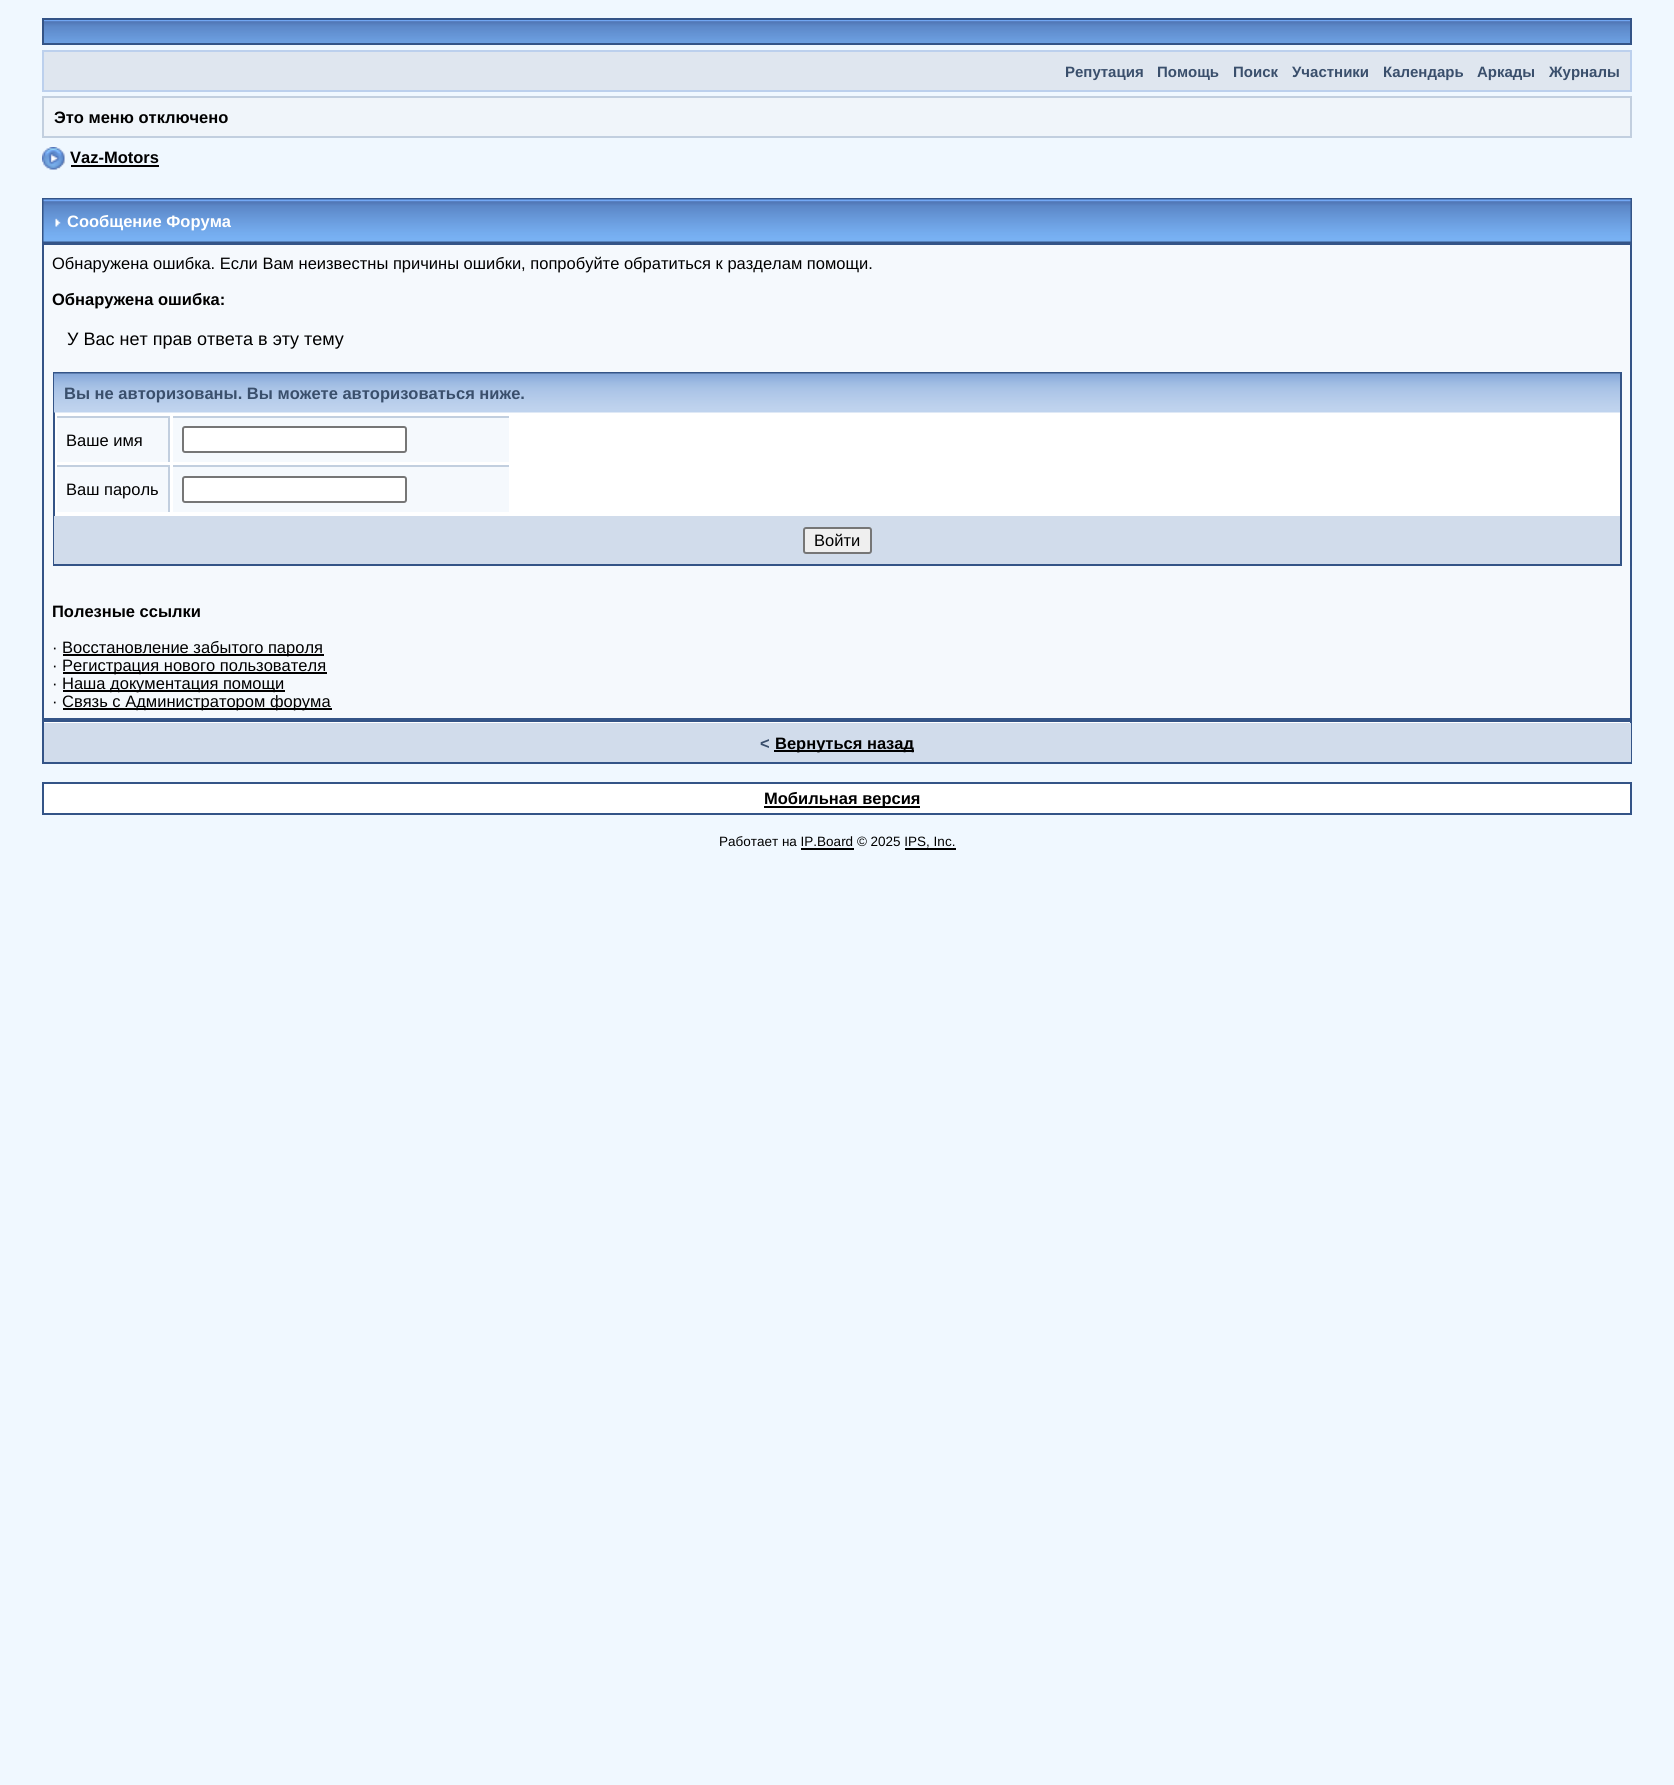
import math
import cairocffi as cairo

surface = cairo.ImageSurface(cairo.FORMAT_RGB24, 1674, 1785)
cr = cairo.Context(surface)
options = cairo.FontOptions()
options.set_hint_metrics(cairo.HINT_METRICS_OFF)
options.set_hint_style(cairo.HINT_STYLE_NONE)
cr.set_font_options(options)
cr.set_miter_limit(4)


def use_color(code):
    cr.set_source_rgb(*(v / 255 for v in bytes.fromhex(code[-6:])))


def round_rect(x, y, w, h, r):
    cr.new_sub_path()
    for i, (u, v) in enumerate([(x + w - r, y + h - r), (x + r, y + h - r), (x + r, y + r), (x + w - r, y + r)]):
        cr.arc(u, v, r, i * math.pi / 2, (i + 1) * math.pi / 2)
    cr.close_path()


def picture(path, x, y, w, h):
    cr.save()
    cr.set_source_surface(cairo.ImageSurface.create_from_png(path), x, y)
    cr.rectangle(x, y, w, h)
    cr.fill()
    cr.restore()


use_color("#f0f8ff")
cr.paint()
picture("img1.png", 44, 20, 1586, 23)
cr.rectangle(43, 19, 1588, 25)
use_color("#345487")
cr.stroke()
use_color("#dfe6ef")
cr.rectangle(43, 51, 1588, 40)
cr.fill_preserve()
use_color("#bcd0ed")
cr.stroke()
cr.select_font_face("Liberation Sans", cairo.FONT_SLANT_NORMAL, cairo.FONT_WEIGHT_BOLD)
cr.set_font_size(15)
use_color("#3a4f6c")
cr.move_to(1065, 77)
cr.show_text("Репутация")
cr.move_to(1157, 77)
cr.show_text("Помощь")
cr.move_to(1233, 77)
cr.show_text("Поиск")
cr.move_to(1292, 77)
cr.show_text("Участники")
cr.move_to(1383, 77)
cr.show_text("Календарь")
cr.move_to(1477, 77)
cr.show_text("Аркады")
cr.move_to(1549, 77)
cr.show_text("Журналы")
use_color("#f0f5fa")
cr.rectangle(43, 97, 1588, 40)
cr.fill_preserve()
use_color("#c2cfdf")
cr.stroke()
cr.set_font_size(16.5)
use_color("#000000")
cr.move_to(54, 123)
cr.show_text("Это меню отключено")
picture("img2.png", 42, 147, 23, 23)
cr.move_to(70, 163)
cr.show_text("Vaz-Motors")
cr.rectangle(71, 165, 88, 2)
cr.fill()
cr.rectangle(43, 199, 1588, 43)
use_color("#345487")
cr.stroke()
picture("img3.png", 43, 199, 1588, 43)
picture("img4.png", 55, 218, 6, 9)
use_color("#ffffff")
cr.move_to(67, 227)
cr.show_text("Сообщение Форума")
use_color("#f5f9fd")
cr.rectangle(43, 244, 1588, 475)
cr.fill_preserve()
use_color("#345487")
cr.stroke()
cr.select_font_face("Liberation Sans")
use_color("#000000")
cr.move_to(52, 269)
cr.show_text("Обнаружена ошибка. Если Вам неизвестны причины ошибки, попробуйте обратиться к разделам помощи.")
cr.select_font_face("Liberation Sans", cairo.FONT_SLANT_NORMAL, cairo.FONT_WEIGHT_BOLD)
cr.move_to(52, 305)
cr.show_text("Обнаружена ошибка:")
cr.select_font_face("Liberation Sans")
cr.set_font_size(18)
cr.move_to(67, 345)
cr.show_text("У Вас нет прав ответа в эту тему")
use_color("#ffffff")
cr.rectangle(55, 412, 1565, 104)
cr.fill()
cr.rectangle(54, 373, 1567, 192)
use_color("#345487")
cr.stroke()
picture("img5.png", 54, 373, 1566, 40)
cr.select_font_face("Liberation Sans", cairo.FONT_SLANT_NORMAL, cairo.FONT_WEIGHT_BOLD)
cr.set_font_size(16.5)
use_color("#3a4f6c")
cr.move_to(64, 399)
cr.show_text("Вы не авторизованы. Вы можете авторизоваться ниже.")
use_color("#f5f9fd")
cr.rectangle(57, 418, 111, 44)
cr.fill()
use_color("#c2cfdf")
cr.rectangle(57, 416, 113, 2)
cr.fill()
cr.rectangle(168, 416, 2, 46)
cr.fill()
cr.select_font_face("Liberation Sans")
use_color("#000000")
cr.move_to(66, 446)
cr.show_text("Ваше имя")
use_color("#f5f9fd")
cr.rectangle(173, 418, 336, 44)
cr.fill()
use_color("#c2cfdf")
cr.rectangle(173, 416, 336, 2)
cr.fill()
use_color("#ffffff")
round_rect(183, 427, 223, 25, 2)
cr.fill_preserve()
use_color("#767676")
cr.stroke()
use_color("#f5f9fd")
cr.rectangle(57, 467, 111, 45)
cr.fill()
use_color("#c2cfdf")
cr.rectangle(57, 465, 113, 2)
cr.fill()
cr.rectangle(168, 465, 2, 47)
cr.fill()
use_color("#000000")
cr.move_to(66, 495)
cr.show_text("Ваш пароль")
use_color("#f5f9fd")
cr.rectangle(173, 467, 336, 45)
cr.fill()
use_color("#c2cfdf")
cr.rectangle(173, 465, 336, 2)
cr.fill()
use_color("#ffffff")
round_rect(183, 477, 223, 25, 2)
cr.fill_preserve()
use_color("#767676")
cr.stroke()
use_color("#d1dceb")
cr.rectangle(54, 516, 1566, 48)
cr.fill()
use_color("#efefef")
round_rect(804, 528, 67, 25, 2)
cr.fill_preserve()
use_color("#767676")
cr.stroke()
use_color("#000000")
cr.move_to(814, 546)
cr.show_text("Войти")
cr.select_font_face("Liberation Sans", cairo.FONT_SLANT_NORMAL, cairo.FONT_WEIGHT_BOLD)
cr.move_to(52, 617)
cr.show_text("Полезные ссылки")
cr.select_font_face("Liberation Sans")
cr.move_to(52, 653)
cr.show_text("·")
cr.rectangle(63, 654, 261, 2)
cr.fill()
cr.move_to(62, 653)
cr.show_text("Восстановление забытого пароля")
cr.move_to(52, 671)
cr.show_text("·")
cr.rectangle(63, 672, 264, 2)
cr.fill()
cr.move_to(62, 671)
cr.show_text("Регистрация нового пользователя")
cr.move_to(52, 689)
cr.show_text("·")
cr.rectangle(63, 690, 222, 2)
cr.fill()
cr.move_to(62, 689)
cr.show_text("Наша документация помощи")
cr.move_to(52, 707)
cr.show_text("·")
cr.rectangle(63, 708, 269, 2)
cr.fill()
cr.move_to(62, 707)
cr.show_text("Связь с Администратором форума")
use_color("#ffffff")
cr.rectangle(44, 722, 1586, 1)
cr.fill()
cr.rectangle(43, 721, 1588, 42)
use_color("#345487")
cr.stroke()
use_color("#d1dceb")
cr.rectangle(44, 723, 1587, 39)
cr.fill()
cr.select_font_face("Liberation Sans", cairo.FONT_SLANT_NORMAL, cairo.FONT_WEIGHT_BOLD)
use_color("#3a4f6c")
cr.move_to(760, 749)
cr.show_text("<")
use_color("#000000")
cr.rectangle(774, 750, 140, 2)
cr.fill()
cr.move_to(775, 749)
cr.show_text("Вернуться назад")
use_color("#ffffff")
cr.rectangle(43, 783, 1588, 31)
cr.fill_preserve()
use_color("#345487")
cr.stroke()
use_color("#000000")
cr.rectangle(764, 806, 156, 2)
cr.fill()
cr.move_to(764, 804)
cr.show_text("Мобильная версия")
cr.select_font_face("Liberation Sans")
cr.set_font_size(13.5)
cr.move_to(719, 846)
cr.show_text("Работает на IP.Board © 2025 IPS, Inc.")
cr.rectangle(801, 848, 53, 2)
cr.fill()
cr.rectangle(905, 848, 51, 2)
cr.fill()
surface.write_to_png("result.png")
